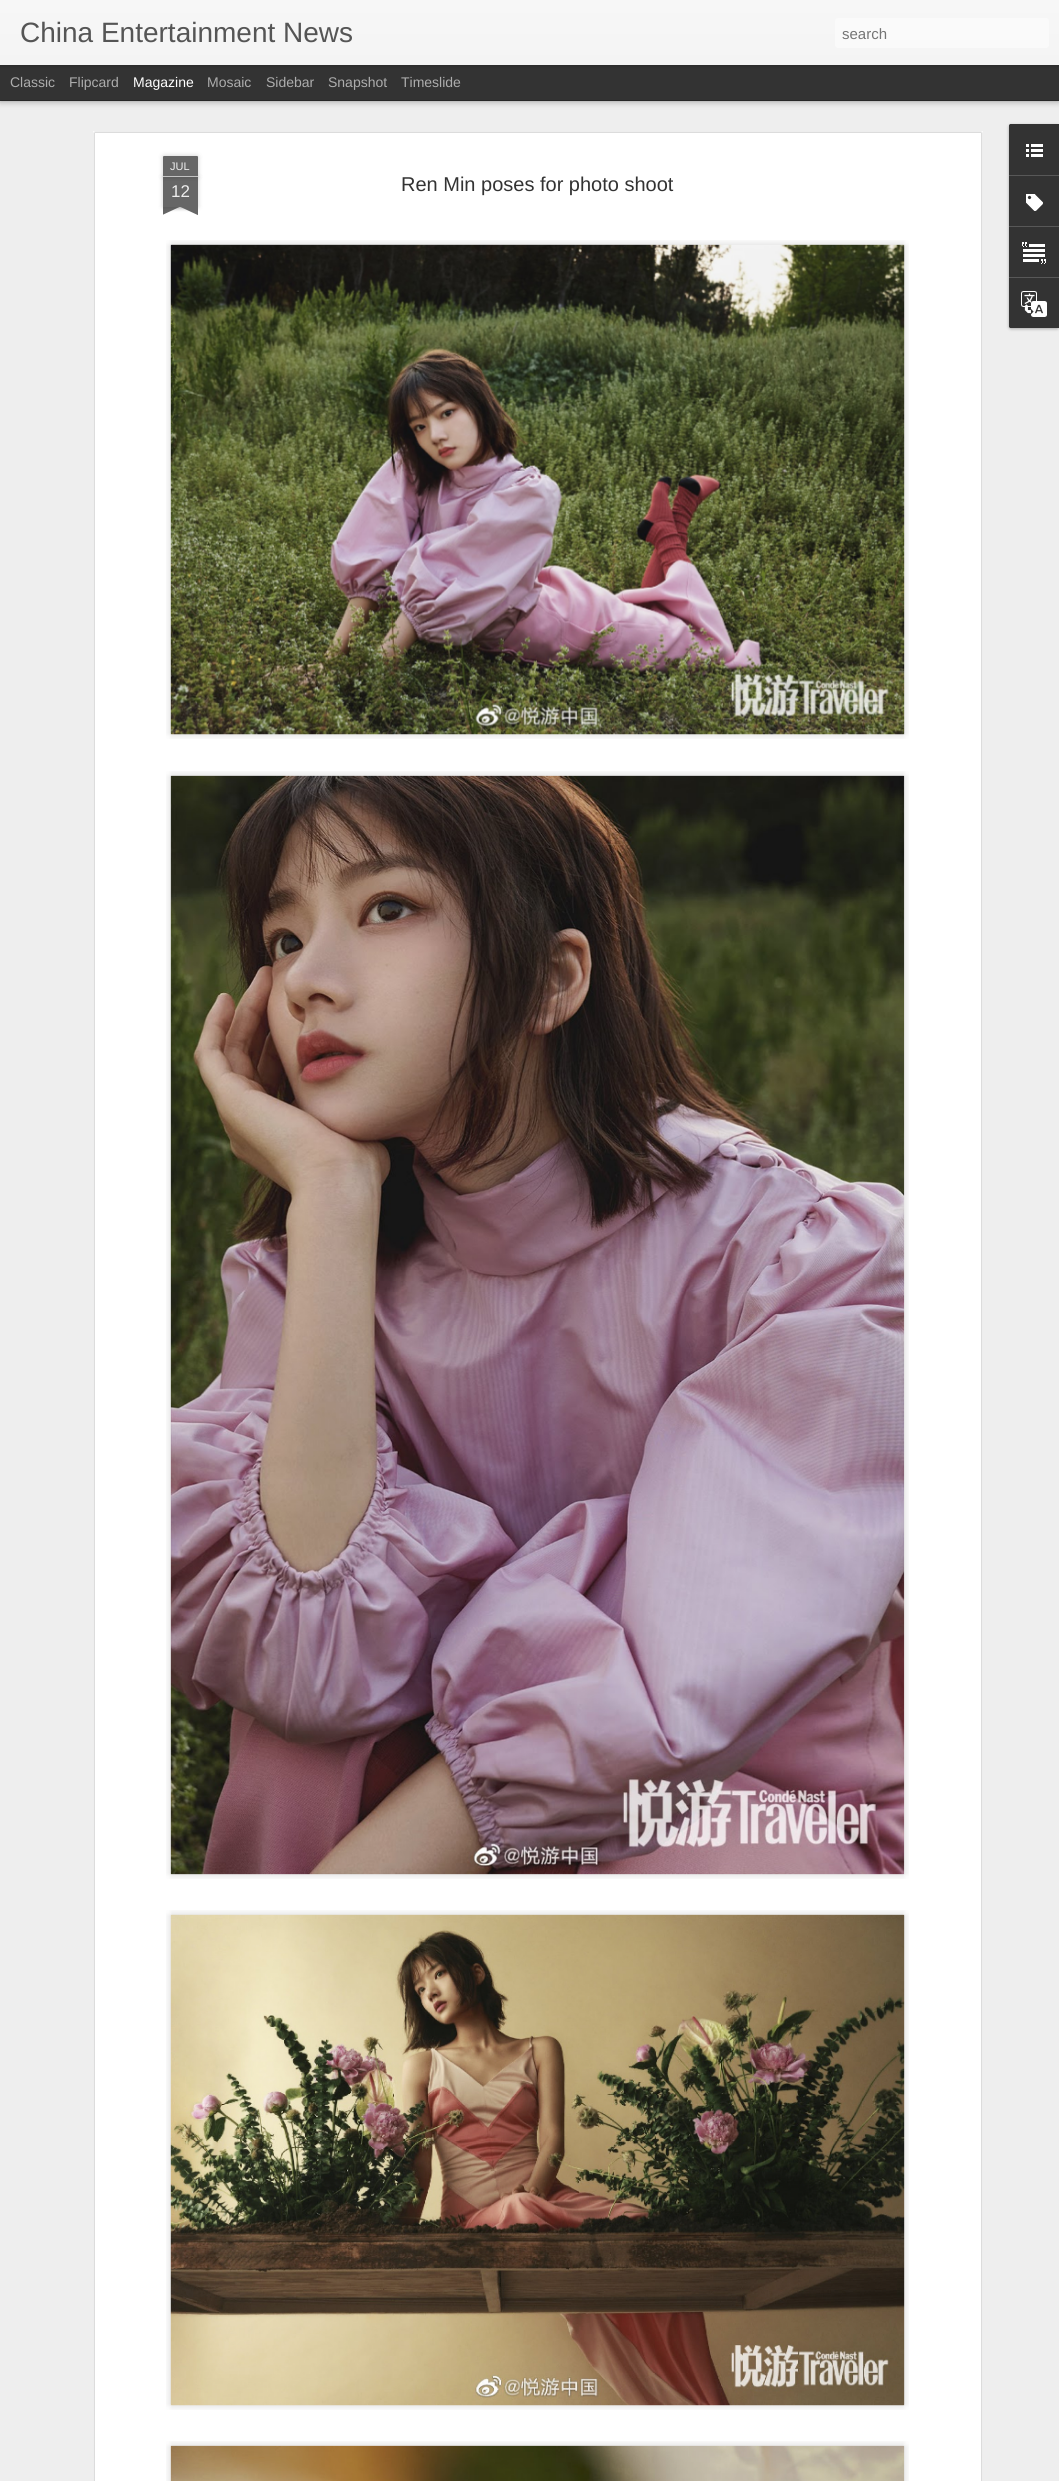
import math
import cairocffi as cairo

surface = cairo.ImageSurface(cairo.FORMAT_RGB24, 1059, 2481)
cr = cairo.Context(surface)
options = cairo.FontOptions()
options.set_hint_metrics(cairo.HINT_METRICS_OFF)
options.set_hint_style(cairo.HINT_STYLE_NONE)
cr.set_font_options(options)
cr.set_miter_limit(4)


def use_color(code):
    cr.set_source_rgb(*(v / 255 for v in bytes.fromhex(code[-6:])))


def round_rect(x, y, w, h, r):
    cr.new_sub_path()
    for i, (u, v) in enumerate([(x + w - r, y + h - r), (x + r, y + h - r), (x + r, y + r), (x + w - r, y + r)]):
        cr.arc(u, v, r, i * math.pi / 2, (i + 1) * math.pi / 2)
    cr.close_path()


def shadow(x, y, w, h, r, blur, alpha):
    cr.push_group_with_content(cairo.CONTENT_ALPHA)
    cr.set_operator(cairo.OPERATOR_SOURCE)
    for i in range(15, -16, -2):
        e = blur * i / 6
        if min(w, h) + 2 * e > 0:
            cr.set_source_rgba(0, 0, 0, alpha * math.erfc((i - 1) / 8.5) / 2)
            round_rect(x - e, y - e, w + 2 * e, h + 2 * e, max(0, min(r + e + blur * .6, min(w, h) / 2 + e)))
            cr.fill()
    cr.mask(cr.pop_group())


def picture(path, x, y, w, h):
    cr.save()
    cr.set_source_surface(cairo.ImageSurface.create_from_png(path), x, y)
    cr.rectangle(x, y, w, h)
    cr.fill()
    cr.restore()


use_color("#333333")
cr.paint()
use_color("#eeeeee")
cr.rectangle(0, 101, 1059, 2380)
cr.fill()
use_color("#000000")
shadow(0, 65, 1059, 35, 0, 4, 0.5)
use_color("#333333")
cr.rectangle(0, 65, 1059, 35)
cr.fill()
use_color("#000000")
shadow(0, 0, 1059, 65, 0, 2.5, 0.3)
gradient = cairo.LinearGradient(0, 0, 0, 65)
gradient.add_color_stop_rgba(0, 0.969, 0.969, 0.969, 1)
gradient.add_color_stop_rgba(1, 0.957, 0.957, 0.957, 1)
cr.set_source(gradient)
cr.rectangle(0, 0, 1059, 65)
cr.fill()
cr.select_font_face("Liberation Sans")
cr.set_font_size(28)
use_color("#555555")
cr.move_to(20, 42)
cr.show_text("China Entertainment News")
use_color("#fafafa")
round_rect(835, 18, 214, 30, 3)
cr.fill()
cr.set_font_size(15)
use_color("#757575")
cr.move_to(842, 39)
cr.show_text("search")
cr.set_font_size(14)
use_color("#adadad")
cr.move_to(10, 87)
cr.show_text("Classic")
cr.move_to(69, 87)
cr.show_text("Flipcard")
use_color("#ffffff")
cr.move_to(133, 87)
cr.show_text("Magazine")
use_color("#adadad")
cr.move_to(207, 87)
cr.show_text("Mosaic")
cr.move_to(266, 87)
cr.show_text("Sidebar")
cr.move_to(328, 87)
cr.show_text("Snapshot")
cr.move_to(401, 87)
cr.show_text("Timeslide")
use_color("#ffffff")
cr.rectangle(93, 131, 890, 2350)
cr.fill()
picture("img1.png", 93, 131, 890, 2350)
use_color("#000000")
shadow(163, 177, 35, 30, 0, 2.5, 0.2)
use_color("#666666")
cr.rectangle(163, 177, 35, 30)
cr.fill()
use_color("#000000")
shadow(163, 156, 35, 21, 1, 2.5, 0.2)
use_color("#666666")
cr.new_path()
cr.move_to(164, 156)
cr.line_to(197, 156)
cr.curve_to(197.5, 156, 198, 156.5, 198, 157)
cr.line_to(198, 177)
cr.line_to(163, 177)
cr.line_to(163, 157)
cr.curve_to(163, 156.5, 163.5, 156, 164, 156)
cr.close_path()
cr.fill()
use_color("#c2c2c2")
cr.rectangle(163, 176, 35, 1)
cr.fill()
cr.set_font_size(11)
use_color("#eeeeee")
cr.move_to(170, 170)
cr.show_text("JUL")
cr.set_font_size(17)
cr.move_to(171, 197)
cr.show_text("12")
cr.save()
cr.rectangle(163, 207, 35, 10)
cr.clip()
use_color("#000000")
shadow(154, 197, 50, 10, 0, 2.5, 0.2)
cr.restore()
cr.save()
cr.rectangle(163, 207, 35, 10)
cr.clip()
use_color("#666666")
cr.new_path()
cr.move_to(154, 208)
cr.line_to(199, 187)
cr.line_to(203, 196)
cr.line_to(158, 217)
cr.close_path()
cr.fill()
cr.restore()
cr.save()
cr.rectangle(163, 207, 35, 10)
cr.clip()
use_color("#000000")
shadow(157, 197, 50, 10, 0, 2.5, 0.2)
cr.restore()
cr.save()
cr.rectangle(163, 207, 35, 10)
cr.clip()
use_color("#666666")
cr.new_path()
cr.move_to(161, 187)
cr.line_to(206, 208)
cr.line_to(202, 217)
cr.line_to(157, 196)
cr.close_path()
cr.fill()
cr.restore()
cr.set_font_size(20)
use_color("#333333")
cr.move_to(401, 191)
cr.show_text("Ren Min poses for photo shoot")
picture("img2.png", 166, 240, 743, 499)
picture("img3.png", 170, 244, 735, 491)
picture("img4.png", 166, 771, 743, 1108)
picture("img5.png", 170, 775, 735, 1100)
picture("img6.png", 166, 1910, 743, 500)
picture("img7.png", 170, 1914, 735, 492)
picture("img8.png", 166, 2441, 743, 40)
picture("img9.png", 170, 2445, 735, 36)
use_color("#000000")
shadow(1009, 125, 50, 204, 2, 1.5, 0.3)
use_color("#333333")
cr.new_path()
cr.move_to(1011, 124)
cr.line_to(1059, 124)
cr.line_to(1059, 328)
cr.line_to(1011, 328)
cr.curve_to(1010, 328, 1009, 327, 1009, 326)
cr.line_to(1009, 126)
cr.curve_to(1009, 125, 1010, 124, 1011, 124)
cr.close_path()
cr.fill()
cr.new_path()
cr.move_to(1011, 124)
cr.line_to(1059, 124)
cr.line_to(1059, 175)
cr.line_to(1009, 175)
cr.line_to(1009, 126)
cr.curve_to(1009, 125, 1010, 124, 1011, 124)
cr.close_path()
cr.fill()
picture("img10.png", 1026, 144, 17, 13)
use_color("#585858")
cr.rectangle(1009, 175, 50, 1)
cr.fill()
picture("img11.png", 1026, 194, 17, 17)
cr.rectangle(1009, 226, 50, 1)
cr.fill()
picture("img12.png", 1022, 242, 24, 22)
use_color("#333333")
cr.new_path()
cr.move_to(1009, 277)
cr.line_to(1059, 277)
cr.line_to(1059, 328)
cr.line_to(1011, 328)
cr.curve_to(1010, 328, 1009, 327, 1009, 326)
cr.close_path()
cr.fill()
use_color("#585858")
cr.rectangle(1009, 277, 50, 1)
cr.fill()
picture("img13.png", 1021, 291, 26, 26)
surface.write_to_png("result.png")
